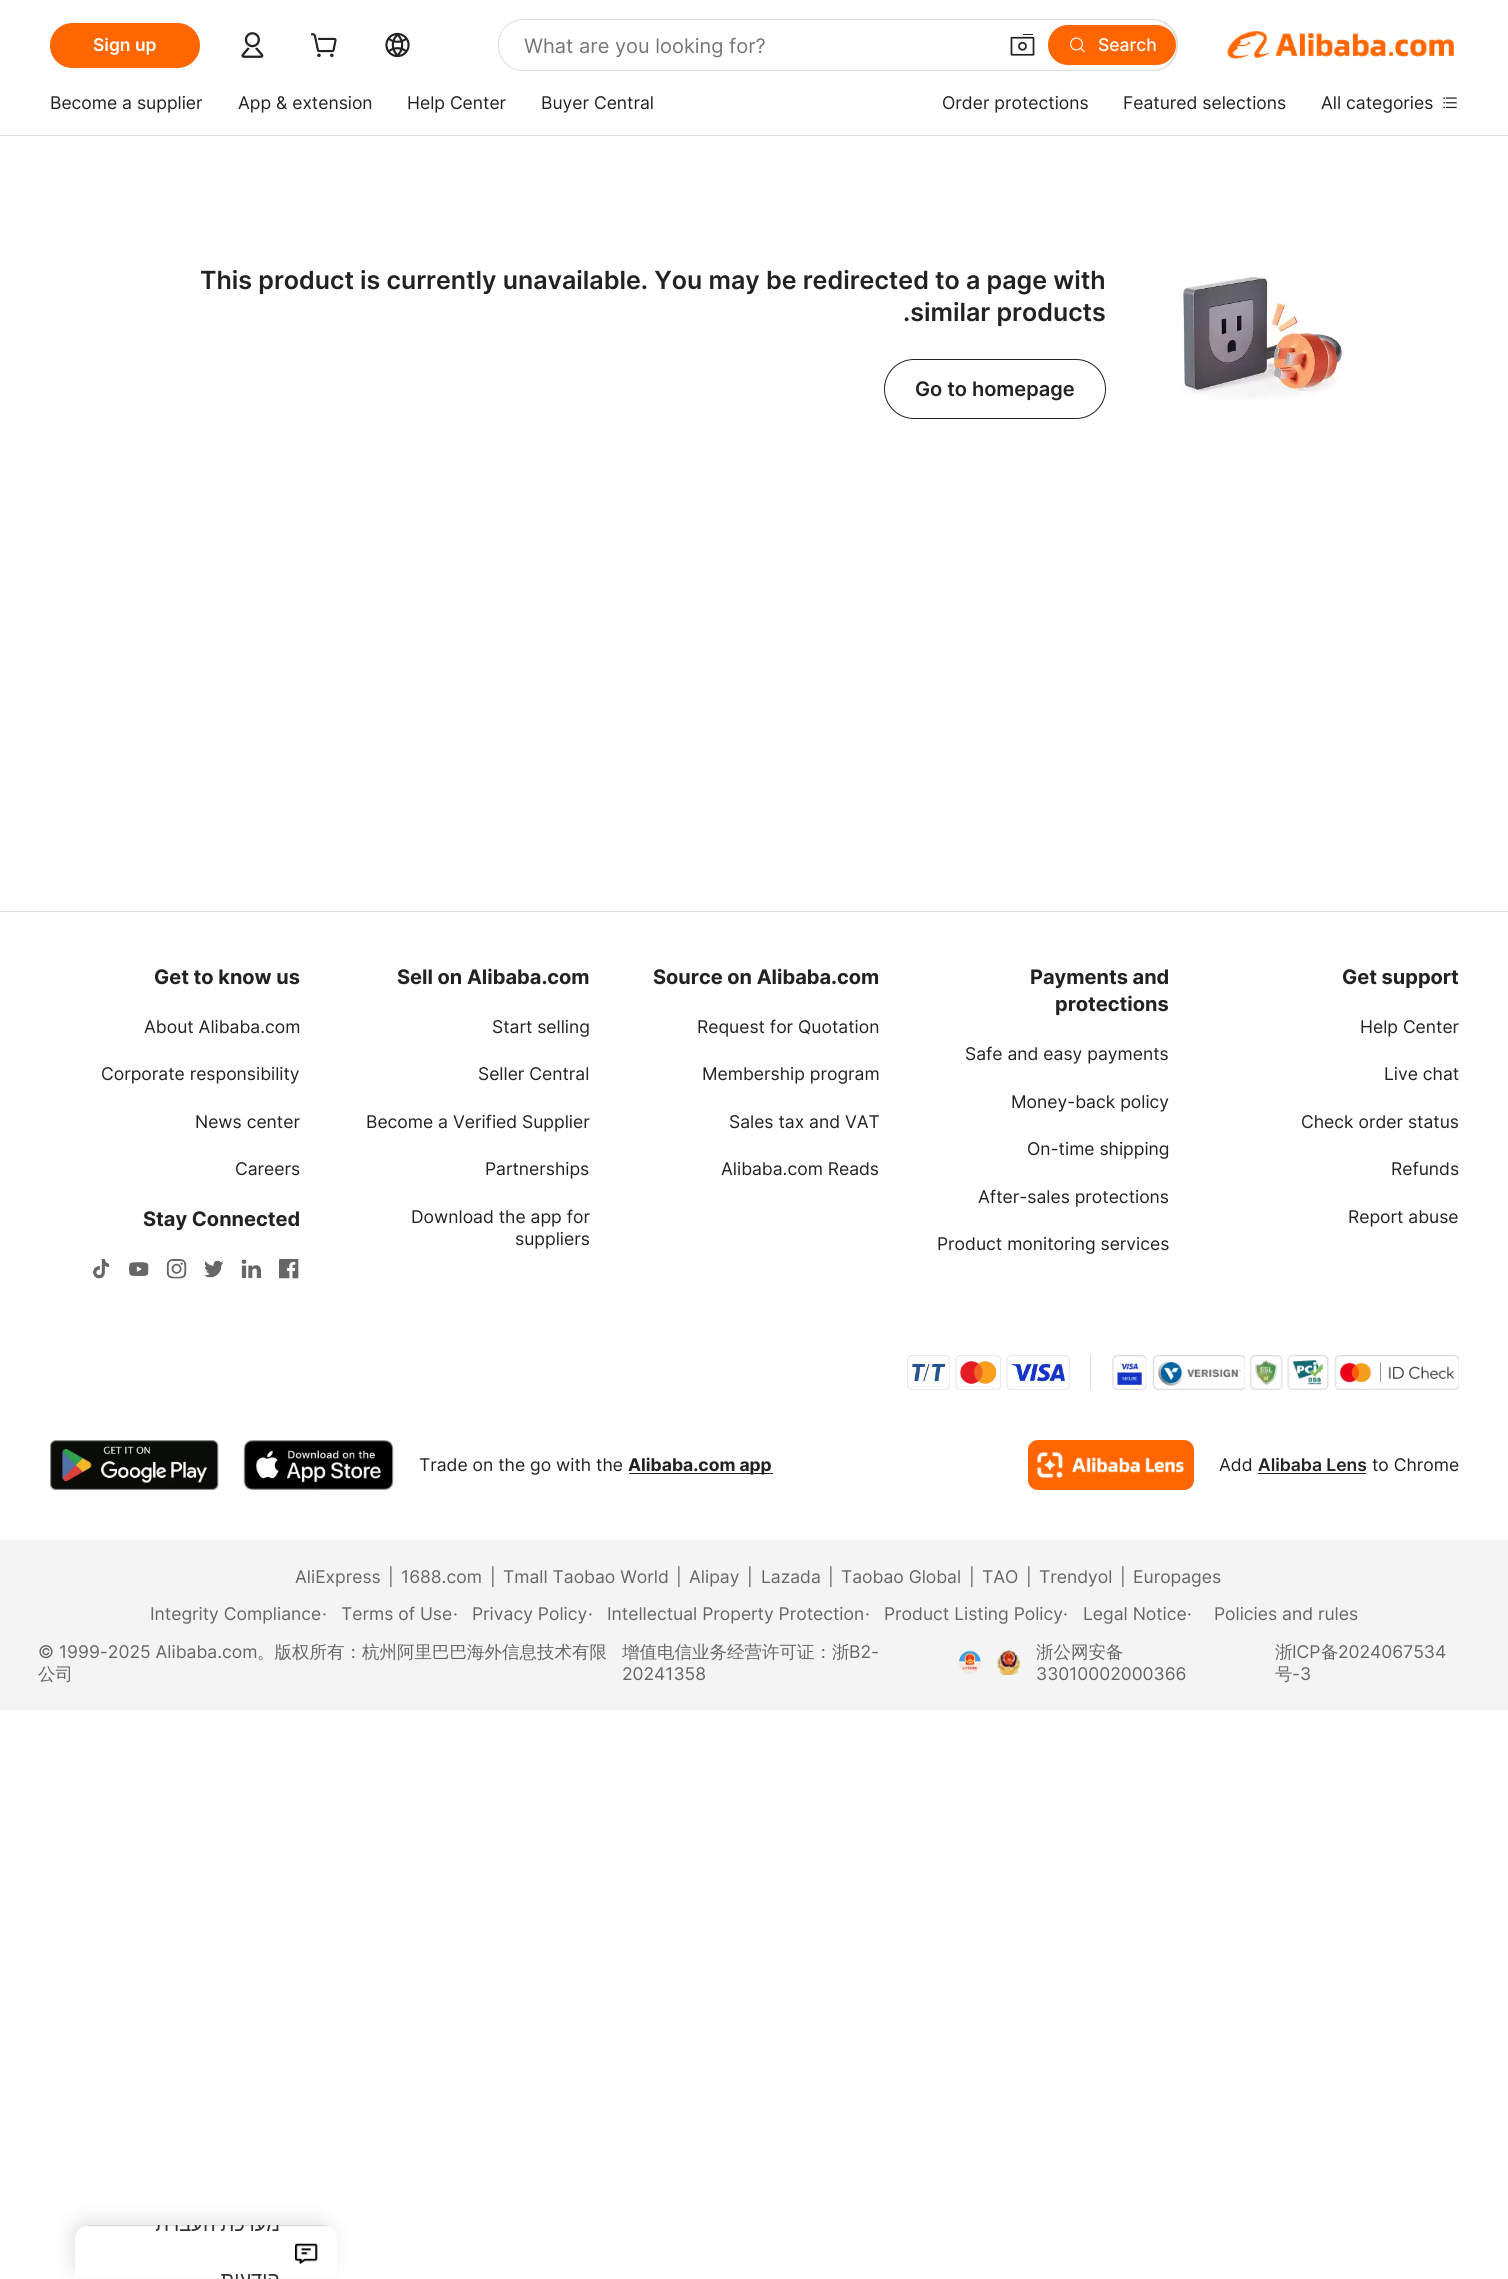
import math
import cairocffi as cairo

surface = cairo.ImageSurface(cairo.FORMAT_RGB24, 1508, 2279)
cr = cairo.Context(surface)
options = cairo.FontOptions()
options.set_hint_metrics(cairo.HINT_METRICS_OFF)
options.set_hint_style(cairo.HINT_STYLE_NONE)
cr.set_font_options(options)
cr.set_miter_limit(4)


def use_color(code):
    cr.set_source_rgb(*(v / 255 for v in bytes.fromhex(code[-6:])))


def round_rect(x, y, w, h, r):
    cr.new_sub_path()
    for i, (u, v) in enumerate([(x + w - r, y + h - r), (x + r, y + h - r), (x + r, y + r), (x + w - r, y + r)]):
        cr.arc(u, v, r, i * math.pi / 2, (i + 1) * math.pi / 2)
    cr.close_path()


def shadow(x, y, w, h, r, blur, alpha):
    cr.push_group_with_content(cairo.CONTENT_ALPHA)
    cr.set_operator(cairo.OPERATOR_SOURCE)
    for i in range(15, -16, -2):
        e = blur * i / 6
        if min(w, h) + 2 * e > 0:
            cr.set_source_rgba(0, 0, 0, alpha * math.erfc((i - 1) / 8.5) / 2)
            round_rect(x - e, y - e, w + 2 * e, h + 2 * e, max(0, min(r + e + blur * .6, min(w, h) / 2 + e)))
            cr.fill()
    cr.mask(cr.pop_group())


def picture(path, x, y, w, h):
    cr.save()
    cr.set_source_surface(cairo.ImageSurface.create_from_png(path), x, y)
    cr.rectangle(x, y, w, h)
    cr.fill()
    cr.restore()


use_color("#ffffff")
cr.paint()
use_color("#dddddd")
cr.rectangle(0, 135, 1508, 1)
cr.fill()
use_color("#ff6600")
round_rect(50, 23, 150, 45, 22.5)
cr.fill()
cr.select_font_face("Inter SemiBold")
cr.set_font_size(17.5)
use_color("#ffffff")
cr.move_to(93, 51)
cr.show_text("Sign up")
picture("img1.png", 241, 32, 23, 26)
picture("img2.png", 311, 33, 26, 25)
picture("img3.png", 385, 32, 25, 26)
use_color("#dddddd")
round_rect(498, 19, 680, 52, 25)
cr.fill()
use_color("#ffffff")
round_rect(499, 20, 677, 50, 24)
cr.fill()
cr.select_font_face("Inter")
cr.set_font_size(20)
use_color("#767676")
cr.move_to(524, 53)
cr.show_text("What are you looking for?")
picture("img4.png", 1010, 34, 25, 22)
use_color("#ff6600")
round_rect(1048, 25, 128, 40, 20)
cr.fill()
picture("img5.png", 1070, 37, 15, 16)
cr.select_font_face("Inter Medium")
cr.set_font_size(17.5)
use_color("#ffffff")
cr.move_to(1098, 51)
cr.show_text("Search")
picture("img6.png", 1227, 31, 227, 28)
cr.select_font_face("Inter")
use_color("#222222")
cr.move_to(50, 109)
cr.show_text("Become a supplier")
cr.move_to(238, 109)
cr.show_text("App & extension")
cr.move_to(407, 109)
cr.show_text("Help Center")
cr.move_to(541, 109)
cr.show_text("Buyer Central")
cr.move_to(942, 109)
cr.show_text("Order protections")
cr.move_to(1123, 109)
cr.show_text("Featured selections")
cr.move_to(1321, 109)
cr.show_text("All categories")
picture("img7.png", 1443, 97, 14, 12)
cr.select_font_face("Inter SemiBold")
cr.set_font_size(25)
cr.move_to(200, 289)
cr.show_text("This product is currently unavailable. You may be redirected to a page with")
cr.move_to(903, 321)
cr.show_text(".similar products")
round_rect(884.5, 359.5, 221, 59, 29.5)
cr.set_line_width(1)
cr.stroke()
cr.set_font_size(20)
cr.move_to(915, 396)
cr.show_text("Go to homepage")
picture("img8.png", 1181, 276, 163, 124)
use_color("#dddddd")
cr.rectangle(0, 911, 1508, 1)
cr.fill()
cr.select_font_face("Inter", cairo.FONT_SLANT_NORMAL, cairo.FONT_WEIGHT_BOLD)
use_color("#222222")
cr.move_to(154, 984)
cr.show_text("Get to know us")
cr.select_font_face("Inter")
cr.set_font_size(17.5)
cr.move_to(144, 1033)
cr.show_text("About Alibaba.com")
cr.move_to(101, 1080)
cr.show_text("Corporate responsibility")
cr.move_to(195, 1128)
cr.show_text("News center")
cr.move_to(235, 1175)
cr.show_text("Careers")
cr.select_font_face("Inter", cairo.FONT_SLANT_NORMAL, cairo.FONT_WEIGHT_BOLD)
cr.set_font_size(20)
cr.move_to(143, 1226)
cr.show_text("Stay Connected")
picture("img9.png", 93, 1259, 17, 20)
picture("img10.png", 129, 1262, 20, 14)
picture("img11.png", 166, 1259, 21, 20)
picture("img12.png", 204, 1260, 20, 18)
picture("img13.png", 241, 1259, 20, 20)
picture("img14.png", 279, 1259, 20, 20)
cr.move_to(397, 984)
cr.show_text("Sell on Alibaba.com")
cr.select_font_face("Inter")
cr.set_font_size(17.5)
cr.move_to(492, 1033)
cr.show_text("Start selling")
cr.move_to(478, 1080)
cr.show_text("Seller Central")
cr.move_to(366, 1128)
cr.show_text("Become a Verified Supplier")
cr.move_to(485, 1175)
cr.show_text("Partnerships")
cr.move_to(411, 1223)
cr.show_text("Download the app for")
cr.move_to(515, 1245)
cr.show_text("suppliers")
cr.select_font_face("Inter", cairo.FONT_SLANT_NORMAL, cairo.FONT_WEIGHT_BOLD)
cr.set_font_size(20)
cr.move_to(653, 984)
cr.show_text("Source on Alibaba.com")
cr.select_font_face("Inter")
cr.set_font_size(17.5)
cr.move_to(697, 1033)
cr.show_text("Request for Quotation")
cr.move_to(702, 1080)
cr.show_text("Membership program")
cr.move_to(729, 1128)
cr.show_text("Sales tax and VAT")
cr.move_to(721, 1175)
cr.show_text("Alibaba.com Reads")
cr.select_font_face("Inter", cairo.FONT_SLANT_NORMAL, cairo.FONT_WEIGHT_BOLD)
cr.set_font_size(20)
cr.move_to(1030, 984)
cr.show_text("Payments and")
cr.move_to(1055, 1011)
cr.show_text("protections")
cr.select_font_face("Inter")
cr.set_font_size(17.5)
cr.move_to(965, 1060)
cr.show_text("Safe and easy payments")
cr.move_to(1011, 1108)
cr.show_text("Money-back policy")
cr.move_to(1027, 1155)
cr.show_text("On-time shipping")
cr.move_to(978, 1203)
cr.show_text("After-sales protections")
cr.move_to(937, 1250)
cr.show_text("Product monitoring services")
cr.select_font_face("Inter", cairo.FONT_SLANT_NORMAL, cairo.FONT_WEIGHT_BOLD)
cr.set_font_size(20)
cr.move_to(1342, 984)
cr.show_text("Get support")
cr.select_font_face("Inter")
cr.set_font_size(17.5)
cr.move_to(1360, 1033)
cr.show_text("Help Center")
cr.move_to(1384, 1080)
cr.show_text("Live chat")
cr.move_to(1301, 1128)
cr.show_text("Check order status")
cr.move_to(1391, 1175)
cr.show_text("Refunds")
cr.move_to(1348, 1223)
cr.show_text("Report abuse")
use_color("#dddddd")
cr.rectangle(1090, 1355, 1, 35)
cr.fill()
picture("img15.png", 907, 1355, 43, 35)
picture("img16.png", 955, 1355, 47, 35)
picture("img17.png", 1006, 1355, 64, 35)
picture("img18.png", 1112, 1355, 35, 35)
picture("img19.png", 1152, 1355, 93, 35)
picture("img20.png", 1250, 1355, 33, 35)
picture("img21.png", 1287, 1355, 42, 35)
picture("img22.png", 1334, 1355, 125, 35)
picture("img23.png", 50, 1440, 169, 50)
picture("img24.png", 243, 1440, 151, 50)
use_color("#222222")
cr.move_to(419, 1471)
cr.show_text("Trade on the go with the")
cr.rectangle(629, 1473, 144, 1)
cr.fill()
cr.select_font_face("Inter", cairo.FONT_SLANT_NORMAL, cairo.FONT_WEIGHT_BOLD)
cr.move_to(628, 1471)
cr.show_text("Alibaba.com app")
use_color("#ff6601")
round_rect(1028, 1440, 166, 50, 10)
cr.fill()
picture("img25.png", 1037, 1452, 147, 26)
cr.select_font_face("Inter")
use_color("#222222")
cr.move_to(1219, 1471)
cr.show_text("Add")
cr.select_font_face("Inter SemiBold")
cr.move_to(1258, 1471)
cr.show_text("Alibaba Lens")
cr.rectangle(1258, 1473, 108, 1)
cr.fill()
cr.select_font_face("Inter")
cr.move_to(1372, 1471)
cr.show_text("to Chrome")
use_color("#f4f4f4")
cr.rectangle(0, 1540, 1508, 170)
cr.fill()
use_color("#666666")
cr.move_to(295, 1583)
cr.show_text("AliExpress")
cr.move_to(388, 1583)
cr.show_text("|")
cr.move_to(401, 1583)
cr.show_text("1688.com")
cr.move_to(490, 1583)
cr.show_text("|")
cr.move_to(503, 1583)
cr.show_text("Tmall Taobao World")
cr.move_to(676, 1583)
cr.show_text("|")
cr.move_to(689, 1583)
cr.show_text("Alipay")
cr.move_to(747, 1583)
cr.show_text("|")
cr.move_to(761, 1583)
cr.show_text("Lazada")
cr.move_to(828, 1583)
cr.show_text("|")
cr.move_to(841, 1583)
cr.show_text("Taobao Global")
cr.move_to(969, 1583)
cr.show_text("|")
cr.move_to(982, 1583)
cr.show_text("TAO")
cr.move_to(1026, 1583)
cr.show_text("|")
cr.move_to(1039, 1583)
cr.show_text("Trendyol")
cr.move_to(1120, 1583)
cr.show_text("|")
cr.move_to(1133, 1583)
cr.show_text("Europages")
cr.move_to(150, 1620)
cr.show_text("Integrity Compliance")
cr.move_to(322, 1620)
cr.show_text("·")
cr.move_to(341, 1620)
cr.show_text("Terms of Use")
cr.move_to(453, 1620)
cr.show_text("·")
cr.move_to(472, 1620)
cr.show_text("Privacy Policy")
cr.move_to(588, 1620)
cr.show_text("·")
cr.move_to(607, 1620)
cr.show_text("Intellectual Property Protection")
cr.move_to(865, 1620)
cr.show_text("·")
cr.move_to(884, 1620)
cr.show_text("Product Listing Policy")
cr.move_to(1063, 1620)
cr.show_text("·")
cr.move_to(1083, 1620)
cr.show_text("Legal Notice")
cr.move_to(1187, 1620)
cr.show_text("·")
cr.move_to(1214, 1620)
cr.show_text("Policies and rules")
cr.move_to(38, 1658)
cr.show_text("© 1999-2025 Alibaba.com")
cr.select_font_face("WenQuanYi Zen Hei Medium")
cr.move_to(257, 1658)
cr.show_text("。版权所有：杭州阿里巴巴海外信息技术有限")
cr.move_to(38, 1680)
cr.show_text("公司")
cr.move_to(622, 1658)
cr.show_text("增值电信业务经营许可证：浙")
cr.select_font_face("Inter")
cr.move_to(849, 1658)
cr.show_text("B2-")
cr.move_to(622, 1680)
cr.show_text("20241358")
picture("img26.png", 958, 1650, 23, 24)
picture("img27.png", 997, 1650, 24, 25)
cr.select_font_face("WenQuanYi Zen Hei Medium")
cr.move_to(1036, 1658)
cr.show_text("浙公网安备")
cr.select_font_face("Inter")
cr.move_to(1036, 1680)
cr.show_text("33010002000366")
cr.select_font_face("WenQuanYi Zen Hei Medium")
cr.move_to(1275, 1658)
cr.show_text("浙")
cr.select_font_face("Inter")
cr.move_to(1292, 1658)
cr.show_text("ICP")
cr.select_font_face("WenQuanYi Zen Hei Medium")
cr.move_to(1321, 1658)
cr.show_text("备")
cr.select_font_face("Inter")
cr.move_to(1338, 1658)
cr.show_text("2024067534")
cr.select_font_face("WenQuanYi Zen Hei Medium")
cr.move_to(1275, 1680)
cr.show_text("号")
cr.select_font_face("Inter")
cr.move_to(1292, 1680)
cr.show_text("-3")
use_color("#000000")
shadow(70, 2220, 263, 55, 15, 9, 0.1)
picture("img28.png", 75, 2225, 262, 54)
surface.write_to_png("result.png")
